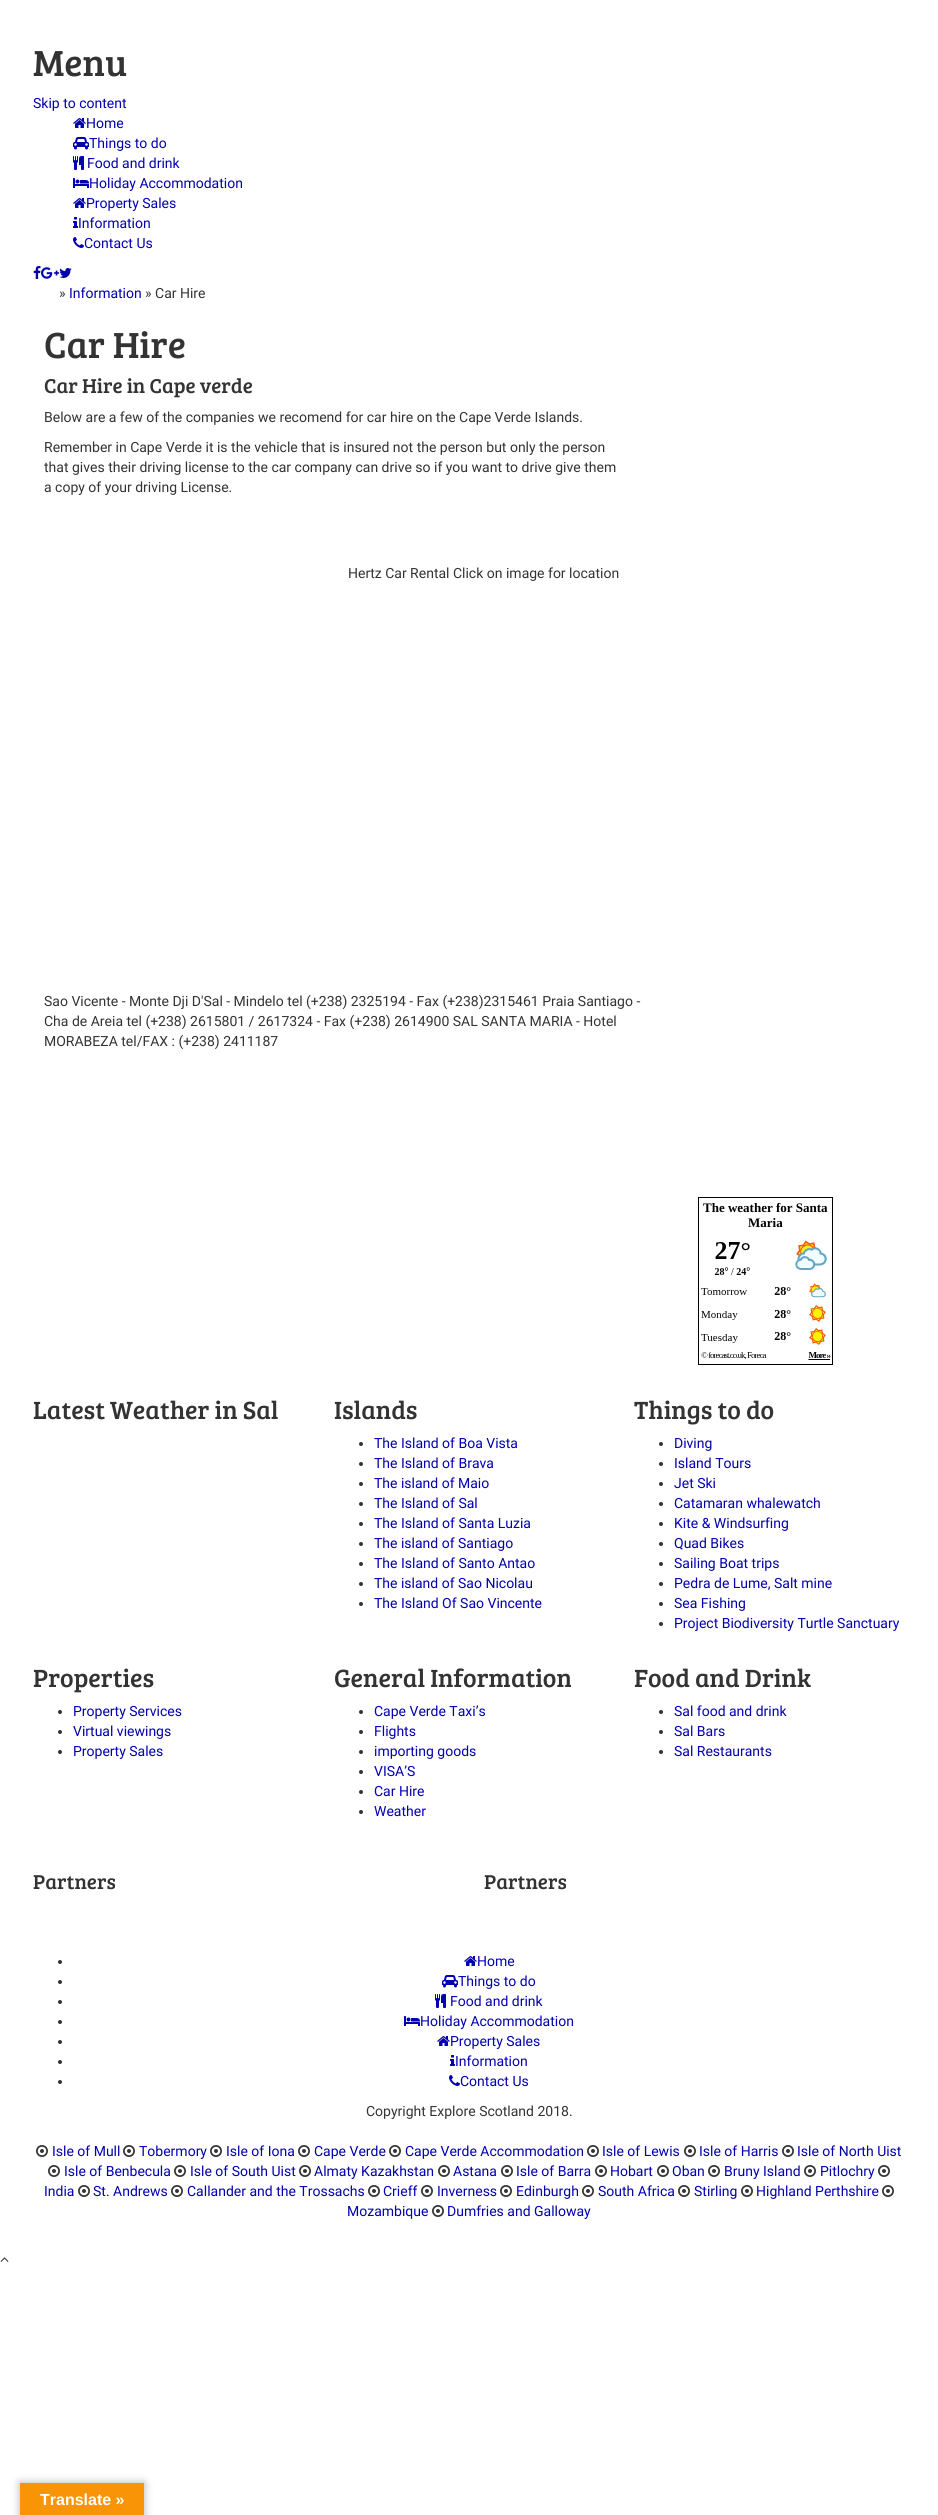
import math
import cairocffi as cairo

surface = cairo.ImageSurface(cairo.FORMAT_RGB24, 938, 2515)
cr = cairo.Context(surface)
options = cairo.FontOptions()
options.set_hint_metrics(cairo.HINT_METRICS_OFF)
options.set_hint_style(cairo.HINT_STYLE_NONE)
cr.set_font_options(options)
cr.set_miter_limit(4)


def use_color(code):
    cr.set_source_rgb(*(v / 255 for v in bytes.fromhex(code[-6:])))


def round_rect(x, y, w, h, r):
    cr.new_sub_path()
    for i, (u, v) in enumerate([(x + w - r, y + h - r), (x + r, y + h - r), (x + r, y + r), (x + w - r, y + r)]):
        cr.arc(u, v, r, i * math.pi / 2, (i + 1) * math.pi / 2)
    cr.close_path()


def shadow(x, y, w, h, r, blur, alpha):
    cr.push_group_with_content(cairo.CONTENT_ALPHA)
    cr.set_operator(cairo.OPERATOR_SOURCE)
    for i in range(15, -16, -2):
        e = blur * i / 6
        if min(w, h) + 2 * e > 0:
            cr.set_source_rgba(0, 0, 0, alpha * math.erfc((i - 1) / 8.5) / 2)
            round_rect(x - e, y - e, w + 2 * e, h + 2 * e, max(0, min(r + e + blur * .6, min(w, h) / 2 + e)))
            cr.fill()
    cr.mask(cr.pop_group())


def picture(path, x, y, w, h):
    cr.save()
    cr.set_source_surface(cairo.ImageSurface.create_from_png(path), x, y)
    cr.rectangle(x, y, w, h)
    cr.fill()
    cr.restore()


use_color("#ffffff")
cr.paint()
cr.select_font_face("Bree Serif")
cr.set_font_size(37.5)
use_color("#333333")
cr.move_to(33, 76)
cr.show_text("Menu")
cr.select_font_face("Roboto")
cr.set_font_size(14)
use_color("#0200af")
cr.move_to(33, 108)
cr.show_text("Skip to content")
picture("img1.png", 73, 118, 13, 10)
cr.move_to(86, 128)
cr.show_text("Home")
picture("img2.png", 73, 137, 16, 13)
cr.move_to(89, 148)
cr.show_text("Things to do")
picture("img3.png", 73, 156, 11, 14)
cr.move_to(87, 168)
cr.show_text("Food and drink")
picture("img4.png", 73, 178, 16, 10)
cr.move_to(89, 188)
cr.show_text("Holiday Accommodation")
picture("img1.png", 73, 198, 13, 10)
cr.move_to(86, 208)
cr.show_text("Property Sales")
picture("img5.png", 73, 217, 5, 11)
cr.move_to(78, 228)
cr.show_text("Information")
picture("img6.png", 73, 237, 11, 11)
cr.move_to(84, 248)
cr.show_text("Contact Us")
picture("img7.png", 33, 266, 8, 13)
picture("img8.png", 41, 267, 18, 12)
picture("img9.png", 59, 268, 13, 10)
use_color("#333333")
cr.move_to(59, 298)
cr.show_text("»")
use_color("#0200af")
cr.move_to(69, 298)
cr.show_text("Information")
use_color("#333333")
cr.move_to(145, 298)
cr.show_text("» Car Hire")
cr.select_font_face("Bree Serif")
cr.set_font_size(37.5)
cr.move_to(44, 358)
cr.show_text("Car Hire")
cr.set_font_size(20.75)
cr.move_to(44, 393)
cr.show_text("Car Hire in Cape verde")
cr.select_font_face("Roboto")
cr.set_font_size(14)
cr.move_to(44, 422)
cr.show_text("Below are a few of the companies we recomend for car hire on the Cape Verde Islands.")
cr.move_to(44, 452)
cr.show_text("Remember in Cape Verde it is the vehicle that is insured not the person but only the person")
cr.move_to(44, 472)
cr.show_text("that gives their driving license to the car company can drive so if you want to drive give them")
cr.move_to(44, 492)
cr.show_text("a copy of your driving License.")
cr.move_to(348, 578)
cr.show_text("Hertz Car Rental Click on image for location")
cr.move_to(44, 1006)
cr.show_text("Sao Vicente - Monte Dji D'Sal - Mindelo tel (+238) 2325194 - Fax (+238)2315461 Praia Santiago -")
cr.move_to(44, 1026)
cr.show_text("Cha de Areia tel (+238) 2615801 / 2617324 - Fax (+238) 2614900 SAL SANTA MARIA - Hotel")
cr.move_to(44, 1046)
cr.show_text("MORABEZA tel/FAX : (+238) 2411187")
cr.rectangle(698.5, 1197.5, 134, 167)
use_color("#000000")
cr.set_line_width(1)
cr.stroke()
cr.select_font_face("Liberation Serif", cairo.FONT_SLANT_NORMAL, cairo.FONT_WEIGHT_BOLD)
cr.set_font_size(13)
cr.move_to(703, 1212)
cr.show_text("The weather for Santa")
cr.move_to(748, 1227)
cr.show_text("Maria")
picture("img10.png", 701, 1240, 130, 120)
cr.select_font_face("Bree Serif")
cr.set_font_size(25.75)
use_color("#333333")
cr.move_to(33, 1419)
cr.show_text("Latest Weather in Sal")
cr.move_to(334, 1419)
cr.show_text("Islands")
cr.new_path()
cr.arc(361, 1444, 2, 0, 2 * math.pi)
cr.fill()
cr.select_font_face("Roboto")
cr.set_font_size(14)
use_color("#0200af")
cr.move_to(374, 1448)
cr.show_text("The Island of Boa Vista")
use_color("#333333")
cr.new_path()
cr.arc(361, 1464, 2, 0, 2 * math.pi)
cr.fill()
use_color("#0200af")
cr.move_to(374, 1468)
cr.show_text("The Island of Brava")
use_color("#333333")
cr.new_path()
cr.arc(361, 1484, 2, 0, 2 * math.pi)
cr.fill()
use_color("#0200af")
cr.move_to(374, 1488)
cr.show_text("The island of Maio")
use_color("#333333")
cr.new_path()
cr.arc(361, 1504, 2, 0, 2 * math.pi)
cr.fill()
use_color("#0200af")
cr.move_to(374, 1508)
cr.show_text("The Island of Sal")
use_color("#333333")
cr.new_path()
cr.arc(361, 1524, 2, 0, 2 * math.pi)
cr.fill()
use_color("#0200af")
cr.move_to(374, 1528)
cr.show_text("The Island of Santa Luzia")
use_color("#333333")
cr.new_path()
cr.arc(361, 1544, 2, 0, 2 * math.pi)
cr.fill()
use_color("#0200af")
cr.move_to(374, 1548)
cr.show_text("The island of Santiago")
use_color("#333333")
cr.new_path()
cr.arc(361, 1564, 2, 0, 2 * math.pi)
cr.fill()
use_color("#0200af")
cr.move_to(374, 1568)
cr.show_text("The Island of Santo Antao")
use_color("#333333")
cr.new_path()
cr.arc(361, 1584, 2, 0, 2 * math.pi)
cr.fill()
use_color("#0200af")
cr.move_to(374, 1588)
cr.show_text("The island of Sao Nicolau")
use_color("#333333")
cr.new_path()
cr.arc(361, 1604, 2, 0, 2 * math.pi)
cr.fill()
use_color("#0200af")
cr.move_to(374, 1608)
cr.show_text("The Island Of Sao Vincente")
cr.select_font_face("Bree Serif")
cr.set_font_size(25.75)
use_color("#333333")
cr.move_to(634, 1419)
cr.show_text("Things to do")
cr.new_path()
cr.arc(661, 1444, 2, 0, 2 * math.pi)
cr.fill()
cr.select_font_face("Roboto")
cr.set_font_size(14)
use_color("#0200af")
cr.move_to(674, 1448)
cr.show_text("Diving")
use_color("#333333")
cr.new_path()
cr.arc(661, 1464, 2, 0, 2 * math.pi)
cr.fill()
use_color("#0200af")
cr.move_to(674, 1468)
cr.show_text("Island Tours")
use_color("#333333")
cr.new_path()
cr.arc(661, 1484, 2, 0, 2 * math.pi)
cr.fill()
use_color("#0200af")
cr.move_to(674, 1488)
cr.show_text("Jet Ski")
use_color("#333333")
cr.new_path()
cr.arc(661, 1504, 2, 0, 2 * math.pi)
cr.fill()
use_color("#0200af")
cr.move_to(674, 1508)
cr.show_text("Catamaran whalewatch")
use_color("#333333")
cr.new_path()
cr.arc(661, 1524, 2, 0, 2 * math.pi)
cr.fill()
use_color("#0200af")
cr.move_to(674, 1528)
cr.show_text("Kite & Windsurfing")
use_color("#333333")
cr.new_path()
cr.arc(661, 1544, 2, 0, 2 * math.pi)
cr.fill()
use_color("#0200af")
cr.move_to(674, 1548)
cr.show_text("Quad Bikes")
use_color("#333333")
cr.new_path()
cr.arc(661, 1564, 2, 0, 2 * math.pi)
cr.fill()
use_color("#0200af")
cr.move_to(674, 1568)
cr.show_text("Sailing Boat trips")
use_color("#333333")
cr.new_path()
cr.arc(661, 1584, 2, 0, 2 * math.pi)
cr.fill()
use_color("#0200af")
cr.move_to(674, 1588)
cr.show_text("Pedra de Lume, Salt mine")
use_color("#333333")
cr.new_path()
cr.arc(661, 1604, 2, 0, 2 * math.pi)
cr.fill()
use_color("#0200af")
cr.move_to(674, 1608)
cr.show_text("Sea Fishing")
use_color("#333333")
cr.new_path()
cr.arc(661, 1624, 2, 0, 2 * math.pi)
cr.fill()
use_color("#0200af")
cr.move_to(674, 1628)
cr.show_text("Project Biodiversity Turtle Sanctuary")
cr.select_font_face("Bree Serif")
cr.set_font_size(25.75)
use_color("#333333")
cr.move_to(33, 1687)
cr.show_text("Properties")
cr.new_path()
cr.arc(60, 1712, 2, 0, 2 * math.pi)
cr.fill()
cr.select_font_face("Roboto")
cr.set_font_size(14)
use_color("#0200af")
cr.move_to(73, 1716)
cr.show_text("Property Services")
use_color("#333333")
cr.new_path()
cr.arc(60, 1732, 2, 0, 2 * math.pi)
cr.fill()
use_color("#0200af")
cr.move_to(73, 1736)
cr.show_text("Virtual viewings")
use_color("#333333")
cr.new_path()
cr.arc(60, 1752, 2, 0, 2 * math.pi)
cr.fill()
use_color("#0200af")
cr.move_to(73, 1756)
cr.show_text("Property Sales")
cr.select_font_face("Bree Serif")
cr.set_font_size(25.75)
use_color("#333333")
cr.move_to(334, 1687)
cr.show_text("General Information")
cr.new_path()
cr.arc(361, 1712, 2, 0, 2 * math.pi)
cr.fill()
cr.select_font_face("Roboto")
cr.set_font_size(14)
use_color("#0200af")
cr.move_to(374, 1716)
cr.show_text("Cape Verde Taxi’s")
use_color("#333333")
cr.new_path()
cr.arc(361, 1732, 2, 0, 2 * math.pi)
cr.fill()
use_color("#0200af")
cr.move_to(374, 1736)
cr.show_text("Flights")
use_color("#333333")
cr.new_path()
cr.arc(361, 1752, 2, 0, 2 * math.pi)
cr.fill()
use_color("#0200af")
cr.move_to(374, 1756)
cr.show_text("importing goods")
use_color("#333333")
cr.new_path()
cr.arc(361, 1772, 2, 0, 2 * math.pi)
cr.fill()
use_color("#0200af")
cr.move_to(374, 1776)
cr.show_text("VISA’S")
use_color("#333333")
cr.new_path()
cr.arc(361, 1792, 2, 0, 2 * math.pi)
cr.fill()
use_color("#0200af")
cr.move_to(374, 1796)
cr.show_text("Car Hire")
use_color("#333333")
cr.new_path()
cr.arc(361, 1812, 2, 0, 2 * math.pi)
cr.fill()
use_color("#0200af")
cr.move_to(374, 1816)
cr.show_text("Weather")
cr.select_font_face("Bree Serif")
cr.set_font_size(25.75)
use_color("#333333")
cr.move_to(634, 1687)
cr.show_text("Food and Drink")
cr.new_path()
cr.arc(661, 1712, 2, 0, 2 * math.pi)
cr.fill()
cr.select_font_face("Roboto")
cr.set_font_size(14)
use_color("#0200af")
cr.move_to(674, 1716)
cr.show_text("Sal food and drink")
use_color("#333333")
cr.new_path()
cr.arc(661, 1732, 2, 0, 2 * math.pi)
cr.fill()
use_color("#0200af")
cr.move_to(674, 1736)
cr.show_text("Sal Bars")
use_color("#333333")
cr.new_path()
cr.arc(661, 1752, 2, 0, 2 * math.pi)
cr.fill()
use_color("#0200af")
cr.move_to(674, 1756)
cr.show_text("Sal Restaurants")
cr.select_font_face("Bree Serif")
cr.set_font_size(20.75)
use_color("#333333")
cr.move_to(33, 1889)
cr.show_text("Partners")
cr.move_to(484, 1889)
cr.show_text("Partners")
cr.new_path()
cr.arc(60, 1962, 2, 0, 2 * math.pi)
cr.fill()
picture("img1.png", 464, 1956, 13, 10)
cr.select_font_face("Roboto")
cr.set_font_size(14)
use_color("#0200af")
cr.move_to(477, 1966)
cr.show_text("Home")
use_color("#333333")
cr.new_path()
cr.arc(60, 1982, 2, 0, 2 * math.pi)
cr.fill()
picture("img2.png", 442, 1975, 16, 13)
use_color("#0200af")
cr.move_to(458, 1986)
cr.show_text("Things to do")
use_color("#333333")
cr.new_path()
cr.arc(60, 2002, 2, 0, 2 * math.pi)
cr.fill()
picture("img3.png", 435, 1994, 11, 14)
use_color("#0200af")
cr.move_to(450, 2006)
cr.show_text("Food and drink")
use_color("#333333")
cr.new_path()
cr.arc(60, 2022, 2, 0, 2 * math.pi)
cr.fill()
picture("img4.png", 404, 2016, 16, 10)
use_color("#0200af")
cr.move_to(420, 2026)
cr.show_text("Holiday Accommodation")
use_color("#333333")
cr.new_path()
cr.arc(60, 2042, 2, 0, 2 * math.pi)
cr.fill()
picture("img1.png", 437, 2036, 13, 10)
use_color("#0200af")
cr.move_to(450, 2046)
cr.show_text("Property Sales")
use_color("#333333")
cr.new_path()
cr.arc(60, 2062, 2, 0, 2 * math.pi)
cr.fill()
picture("img5.png", 450, 2055, 5, 11)
use_color("#0200af")
cr.move_to(455, 2066)
cr.show_text("Information")
use_color("#333333")
cr.new_path()
cr.arc(60, 2082, 2, 0, 2 * math.pi)
cr.fill()
picture("img6.png", 449, 2075, 11, 11)
use_color("#0200af")
cr.move_to(460, 2086)
cr.show_text("Contact Us")
use_color("#333333")
cr.move_to(366, 2116)
cr.show_text("Copyright Explore Scotland 2018.")
picture("img11.png", 36, 2145, 12, 12)
use_color("#0200af")
cr.move_to(52, 2156)
cr.show_text("Isle of Mull")
picture("img11.png", 123, 2145, 12, 12)
cr.move_to(139, 2156)
cr.show_text("Tobermory")
picture("img11.png", 210, 2145, 12, 12)
cr.move_to(226, 2156)
cr.show_text("Isle of Iona")
picture("img11.png", 298, 2145, 12, 12)
cr.move_to(314, 2156)
cr.show_text("Cape Verde")
picture("img11.png", 389, 2145, 12, 12)
cr.move_to(405, 2156)
cr.show_text("Cape Verde Accommodation")
picture("img11.png", 587, 2145, 12, 12)
cr.move_to(602, 2156)
cr.show_text("Isle of Lewis")
picture("img11.png", 684, 2145, 12, 12)
cr.move_to(699, 2156)
cr.show_text("Isle of Harris")
picture("img11.png", 782, 2145, 12, 12)
cr.move_to(797, 2156)
cr.show_text("Isle of North Uist")
picture("img11.png", 48, 2165, 12, 12)
cr.move_to(64, 2176)
cr.show_text("Isle of Benbecula")
picture("img11.png", 174, 2165, 12, 12)
cr.move_to(190, 2176)
cr.show_text("Isle of South Uist")
picture("img11.png", 299, 2165, 12, 12)
cr.move_to(314, 2176)
cr.show_text("Almaty Kazakhstan")
picture("img11.png", 438, 2165, 12, 12)
cr.move_to(453, 2176)
cr.show_text("Astana")
picture("img11.png", 501, 2165, 12, 12)
cr.move_to(516, 2176)
cr.show_text("Isle of Barra")
picture("img11.png", 595, 2165, 12, 12)
cr.move_to(610, 2176)
cr.show_text("Hobart")
picture("img11.png", 657, 2165, 12, 12)
cr.move_to(672, 2176)
cr.show_text("Oban")
picture("img11.png", 708, 2165, 12, 12)
cr.move_to(724, 2176)
cr.show_text("Bruny Island")
picture("img11.png", 804, 2165, 12, 12)
cr.move_to(820, 2176)
cr.show_text("Pitlochry")
picture("img11.png", 878, 2165, 12, 12)
cr.move_to(44, 2196)
cr.show_text("India")
picture("img11.png", 78, 2185, 12, 12)
cr.move_to(93, 2196)
cr.show_text("St. Andrews")
picture("img11.png", 171, 2185, 12, 12)
cr.move_to(187, 2196)
cr.show_text("Callander and the Trossachs")
picture("img11.png", 368, 2185, 12, 12)
cr.move_to(383, 2196)
cr.show_text("Crieff")
picture("img11.png", 421, 2185, 12, 12)
cr.move_to(437, 2196)
cr.show_text("Inverness")
picture("img11.png", 500, 2185, 12, 12)
cr.move_to(516, 2196)
cr.show_text("Edinburgh")
picture("img11.png", 582, 2185, 12, 12)
cr.move_to(598, 2196)
cr.show_text("South Africa")
picture("img11.png", 678, 2185, 12, 12)
cr.move_to(694, 2196)
cr.show_text("Stirling")
picture("img11.png", 741, 2185, 12, 12)
cr.move_to(756, 2196)
cr.show_text("Highland Perthshire")
picture("img11.png", 882, 2185, 12, 12)
cr.move_to(347, 2216)
cr.show_text("Mozambique")
picture("img11.png", 432, 2205, 12, 12)
cr.move_to(447, 2216)
cr.show_text("Dumfries and Galloway")
picture("img12.png", 0, 2257, 9, 5)
use_color("#000000")
shadow(20, 2483, 124, 32, 0, 4.5, 0.3)
use_color("#f89406")
cr.rectangle(20, 2483, 124, 32)
cr.fill()
cr.select_font_face("Liberation Sans", cairo.FONT_SLANT_NORMAL, cairo.FONT_WEIGHT_BOLD)
cr.set_font_size(16)
use_color("#ffffff")
cr.move_to(40, 2505)
cr.show_text("Translate »")
surface.write_to_png("result.png")
